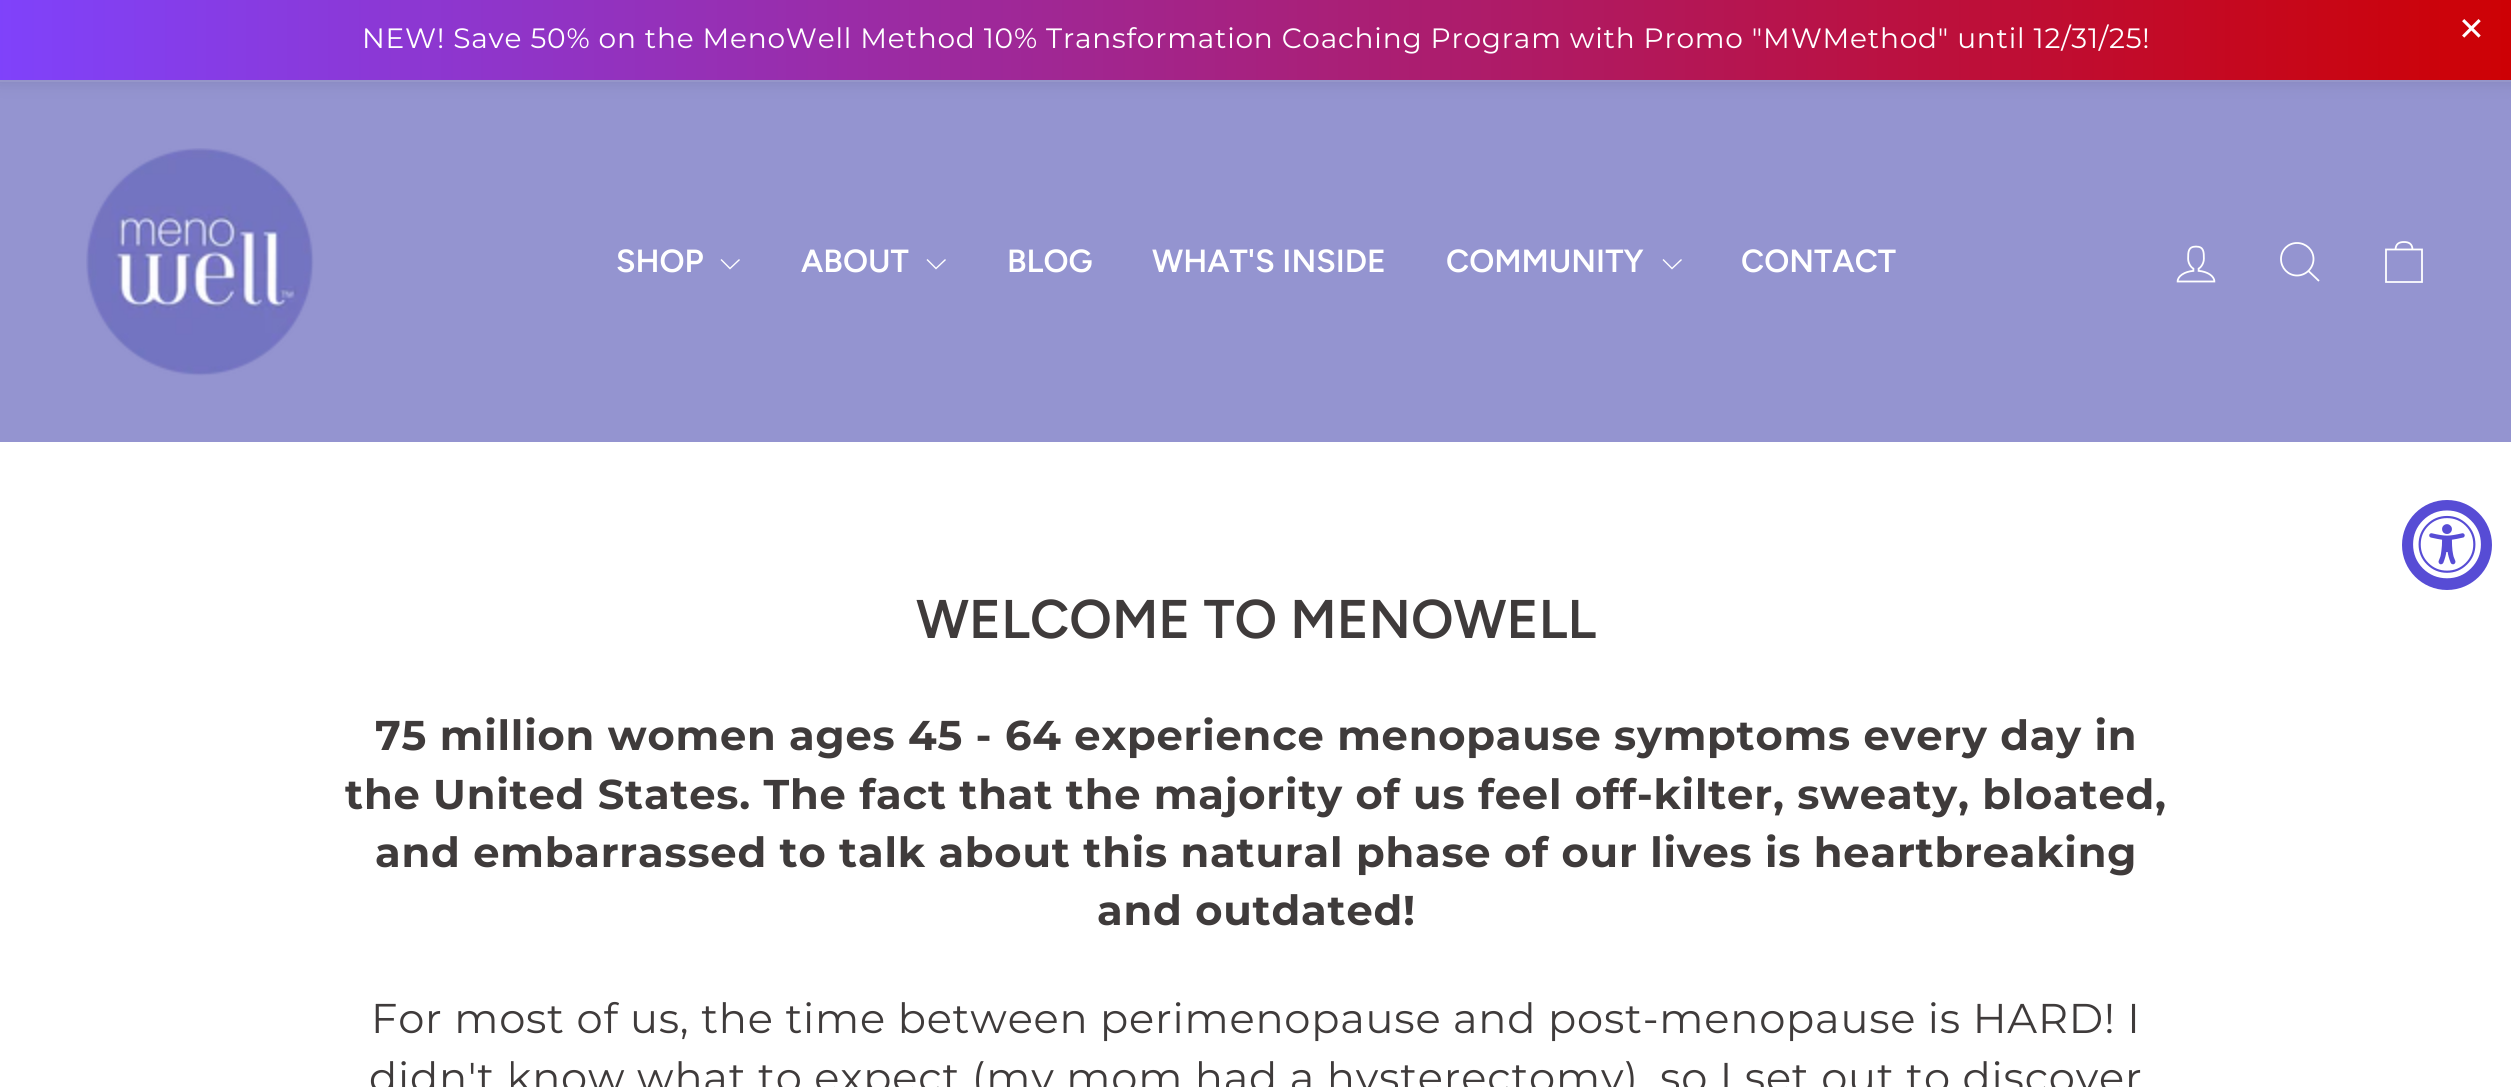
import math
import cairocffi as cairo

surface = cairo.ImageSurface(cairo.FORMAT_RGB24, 2511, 1087)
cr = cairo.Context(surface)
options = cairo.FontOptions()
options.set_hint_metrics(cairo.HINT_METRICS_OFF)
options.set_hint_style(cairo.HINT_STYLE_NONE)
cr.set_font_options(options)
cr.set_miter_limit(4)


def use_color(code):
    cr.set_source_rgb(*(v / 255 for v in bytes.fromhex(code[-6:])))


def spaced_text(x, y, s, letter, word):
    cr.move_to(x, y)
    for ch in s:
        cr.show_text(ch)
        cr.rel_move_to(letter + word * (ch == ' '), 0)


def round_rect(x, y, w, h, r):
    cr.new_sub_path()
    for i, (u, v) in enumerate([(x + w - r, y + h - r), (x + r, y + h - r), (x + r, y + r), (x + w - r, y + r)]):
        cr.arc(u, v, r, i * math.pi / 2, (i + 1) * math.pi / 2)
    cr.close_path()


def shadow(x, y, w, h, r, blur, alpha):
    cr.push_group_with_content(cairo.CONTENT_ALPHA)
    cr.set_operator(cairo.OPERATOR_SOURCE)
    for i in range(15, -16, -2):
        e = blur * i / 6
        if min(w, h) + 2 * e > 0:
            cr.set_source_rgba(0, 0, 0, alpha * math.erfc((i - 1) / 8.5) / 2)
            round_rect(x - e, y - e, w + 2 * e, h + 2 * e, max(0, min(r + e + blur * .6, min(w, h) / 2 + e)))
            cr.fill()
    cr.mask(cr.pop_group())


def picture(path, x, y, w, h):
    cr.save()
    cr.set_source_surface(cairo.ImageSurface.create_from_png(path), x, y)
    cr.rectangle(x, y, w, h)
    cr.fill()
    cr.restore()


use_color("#ffffff")
cr.paint()
use_color("#9494d0")
cr.rectangle(0, 82, 2511, 360)
cr.fill()
use_color("#9f9fd5")
cr.rectangle(0, 80, 2511, 2)
cr.fill()
use_color("#000000")
shadow(-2, -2, 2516, 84, 0, 9, 0.11)
picture("img1.png", 0, 0, 2511, 80)
cr.select_font_face("Montserrat")
cr.set_font_size(28)
use_color("#ffffff")
spaced_text(362, 48, "NEW! Save 50% on the MenoWell Method 10% Transformation Coaching Program with Promo \"MWMethod\" until 12/31/25!", 0.8, 0)
cr.select_font_face("DejaVu Sans")
cr.set_font_size(32)
spaced_text(2458, 40, "✕", 0.8, 0)
picture("img2.png", 86, 148, 228, 228)
cr.select_font_face("Figtree SemiBold")
cr.move_to(616, 272)
cr.show_text("SHOP")
cr.new_path()
cr.move_to(721, 259.5)
cr.line_to(730, 268.5)
cr.line_to(739.5, 259.5)
cr.set_line_width(1.4)
cr.stroke()
cr.move_to(801, 272)
cr.show_text("ABOUT")
cr.new_path()
cr.move_to(927, 259.5)
cr.line_to(936, 268.5)
cr.line_to(945.5, 259.5)
cr.stroke()
cr.move_to(1007, 272)
cr.show_text("BLOG")
cr.move_to(1152, 272)
cr.show_text("WHAT'S INSIDE")
cr.move_to(1446, 272)
cr.show_text("COMMUNITY")
cr.new_path()
cr.move_to(1663, 259.5)
cr.line_to(1672, 268.5)
cr.line_to(1681.5, 259.5)
cr.stroke()
cr.move_to(1741, 272)
cr.show_text("CONTACT")
picture("img3.png", 2176, 245, 40, 38)
cr.new_path()
cr.move_to(2313.5, 259)
cr.curve_to(2313.5, 268, 2306, 275.5, 2297, 275.5)
cr.curve_to(2288, 275.5, 2281, 268, 2281, 259)
cr.curve_to(2281, 250, 2288, 243, 2297, 243)
cr.curve_to(2306, 243, 2313.5, 250, 2313.5, 259)
cr.close_path()
cr.move_to(2319, 281)
cr.line_to(2308.5, 271)
cr.set_line_width(1.8)
cr.stroke()
cr.new_path()
cr.move_to(2386, 249.5)
cr.line_to(2422, 249.5)
cr.line_to(2422, 282)
cr.line_to(2386, 282)
cr.close_path()
cr.move_to(2395.5, 250)
cr.curve_to(2395.5, 243.5, 2399.5, 242, 2404, 242)
cr.curve_to(2408.5, 242, 2412.5, 243.5, 2412.5, 250)
cr.stroke()
cr.set_font_size(54.4)
use_color("#3f3b3b")
cr.move_to(916, 638)
cr.show_text("WELCOME TO MENOWELL")
cr.select_font_face("Montserrat", cairo.FONT_SLANT_NORMAL, cairo.FONT_WEIGHT_BOLD)
cr.set_font_size(41.6)
spaced_text(375, 750, "75 million women ages 45 - 64 experience menopause symptoms every day in", 0.8, 0)
spaced_text(345, 809, "the United States. The fact that the majority of us feel off-kilter, sweaty, bloated,", 0.8, 0)
spaced_text(375, 867, "and embarrassed to talk about this natural phase of our lives is heartbreaking", 0.8, 0)
spaced_text(1097, 925, "and outdated!", 0.8, 0)
cr.select_font_face("Montserrat")
spaced_text(371, 1033, "For most of us, the time between perimenopause and post-menopause is HARD! I", 0.8, 0)
spaced_text(369, 1092, "didn't know what to expect (my mom had a hysterectomy), so I set out to discover", 0.8, 0)
use_color("#574cd5")
cr.new_path()
cr.arc(2447, 545, 45, 0, 2 * math.pi)
cr.fill()
picture("img4.png", 2413, 510, 68, 69)
surface.write_to_png("result.png")
